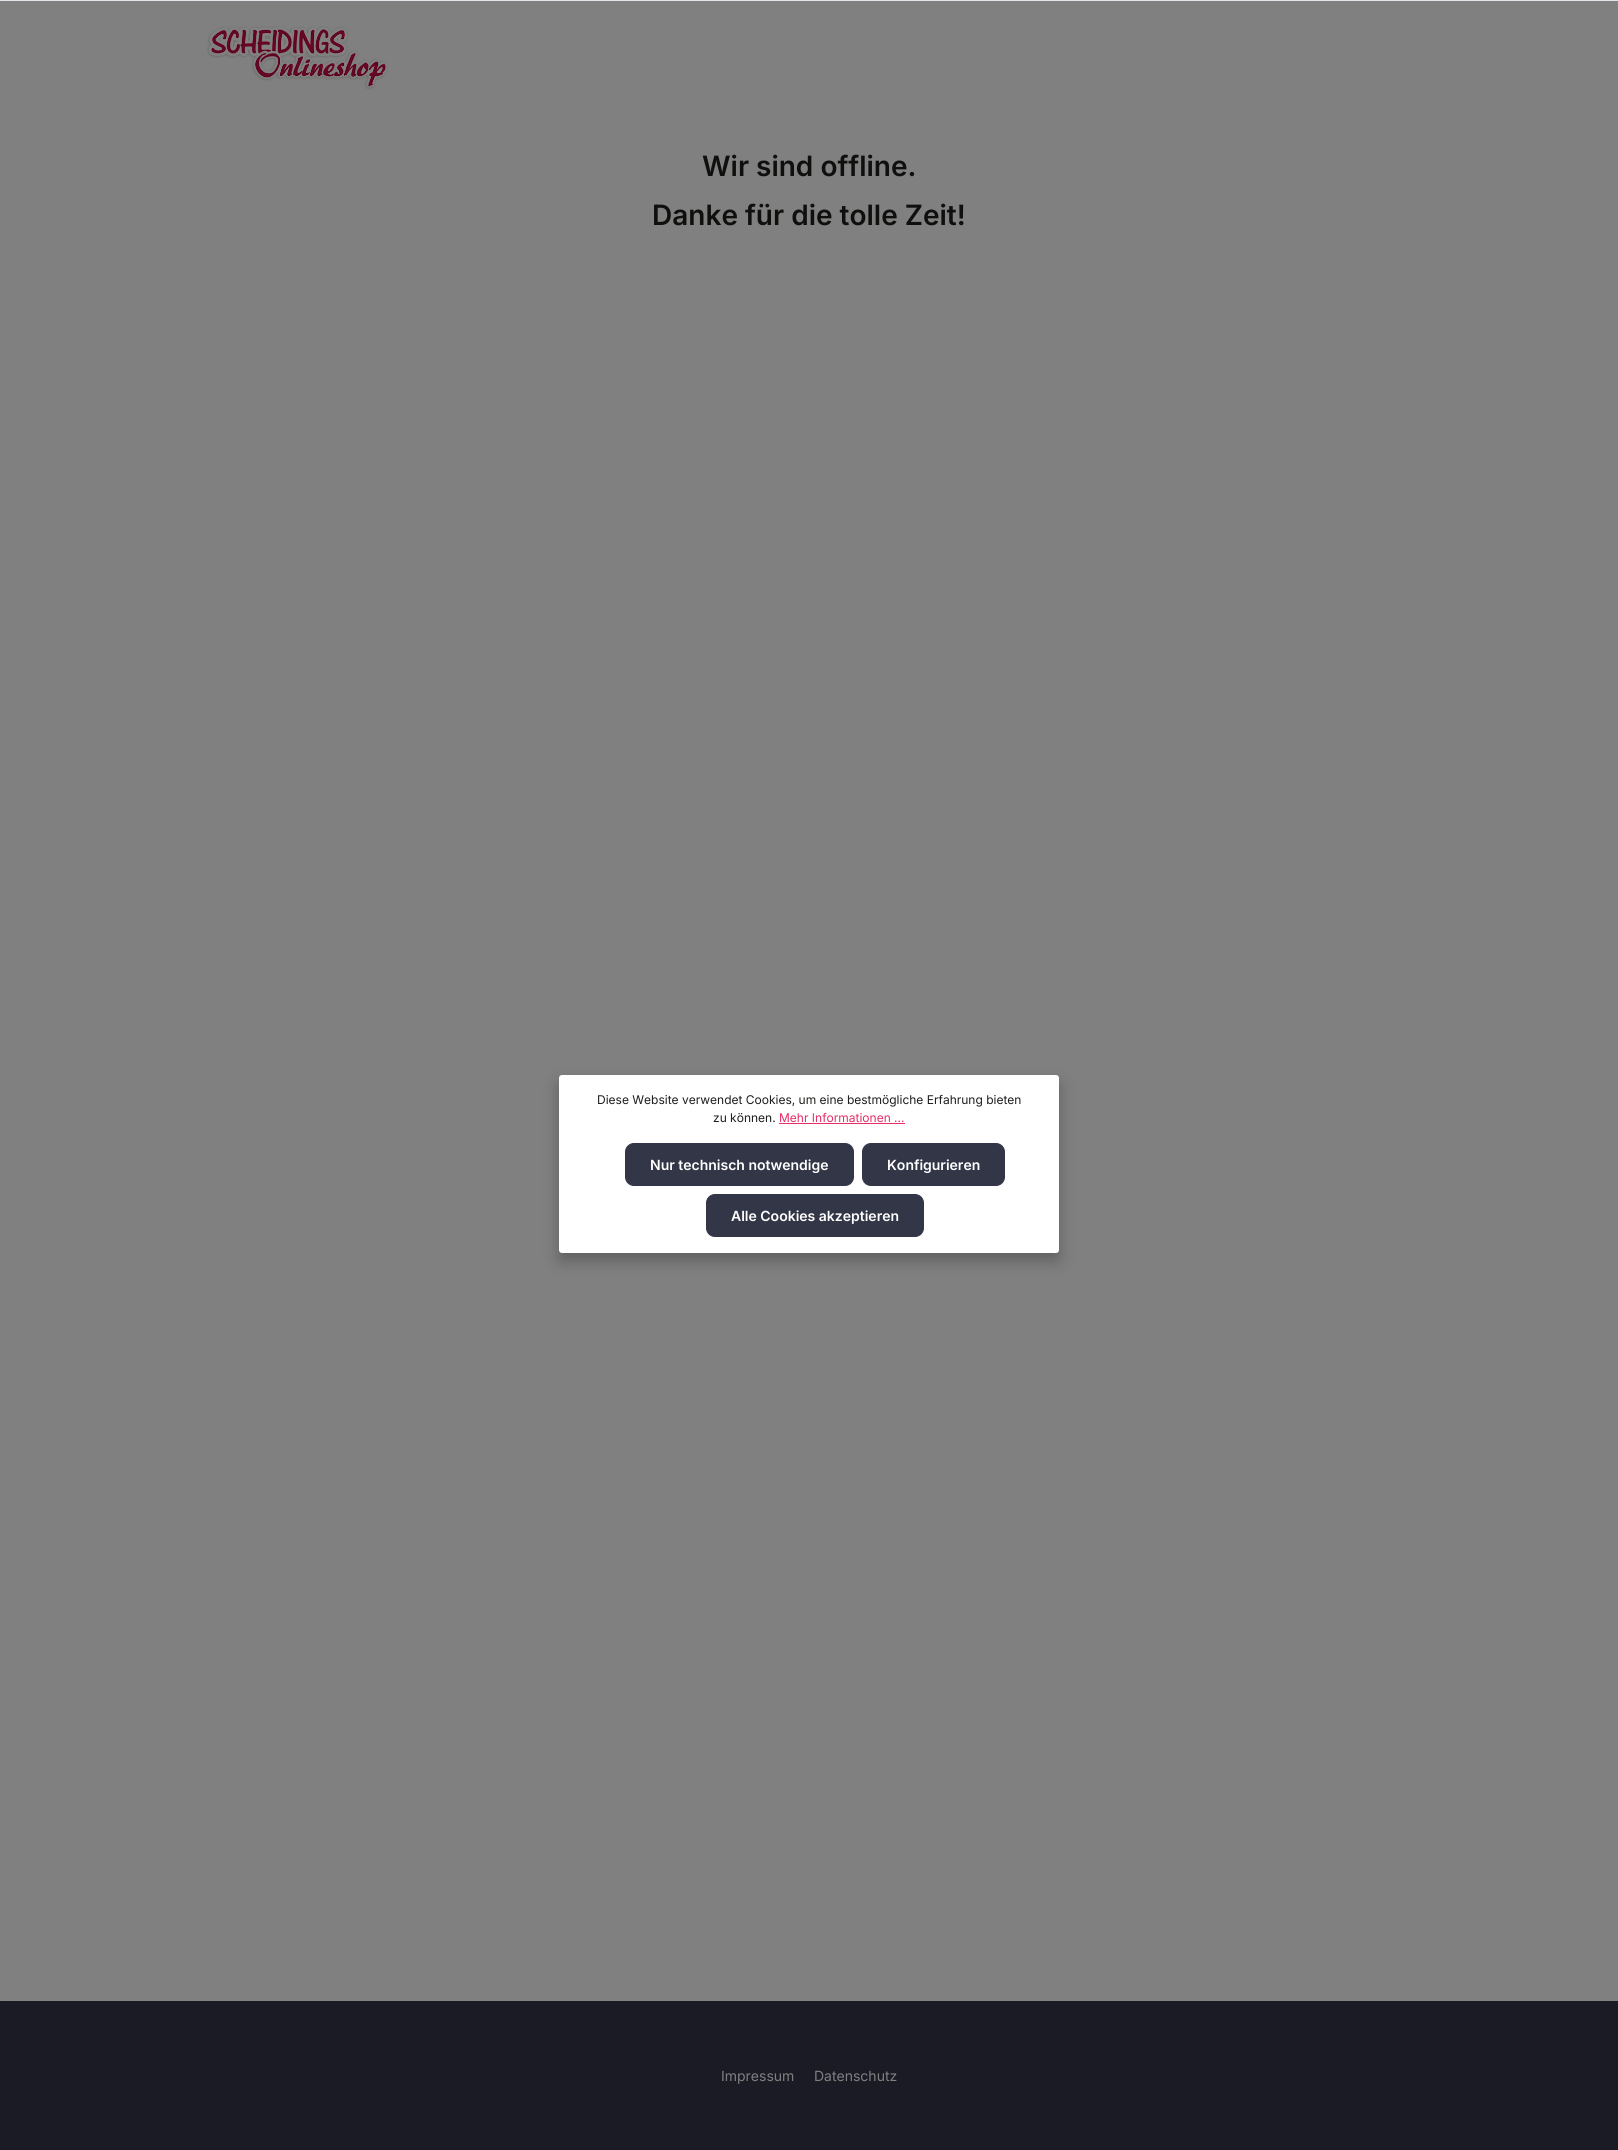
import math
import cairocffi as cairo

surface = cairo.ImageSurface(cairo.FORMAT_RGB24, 1618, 2150)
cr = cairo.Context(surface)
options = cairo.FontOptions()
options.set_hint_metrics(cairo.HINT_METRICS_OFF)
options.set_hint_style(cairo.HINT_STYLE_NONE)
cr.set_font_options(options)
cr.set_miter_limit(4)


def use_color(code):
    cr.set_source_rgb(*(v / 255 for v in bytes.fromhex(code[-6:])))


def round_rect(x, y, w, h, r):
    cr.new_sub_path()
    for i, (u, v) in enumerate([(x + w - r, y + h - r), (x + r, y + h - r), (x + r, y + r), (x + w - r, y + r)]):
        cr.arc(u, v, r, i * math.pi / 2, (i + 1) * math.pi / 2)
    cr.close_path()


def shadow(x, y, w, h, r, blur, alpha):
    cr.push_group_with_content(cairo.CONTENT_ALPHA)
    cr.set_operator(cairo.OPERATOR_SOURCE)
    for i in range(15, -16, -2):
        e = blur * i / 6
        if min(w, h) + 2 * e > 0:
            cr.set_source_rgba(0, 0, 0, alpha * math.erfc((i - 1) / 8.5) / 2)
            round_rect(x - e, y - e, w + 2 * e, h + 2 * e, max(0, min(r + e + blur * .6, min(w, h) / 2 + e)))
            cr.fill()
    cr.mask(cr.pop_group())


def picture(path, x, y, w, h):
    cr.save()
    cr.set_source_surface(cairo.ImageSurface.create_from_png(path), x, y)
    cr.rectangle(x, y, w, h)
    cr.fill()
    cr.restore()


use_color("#808080")
cr.paint()
picture("img1.png", 207, 26, 181, 64)
cr.select_font_face("Inter SemiBold")
cr.set_font_size(28)
use_color("#0f0f0e")
cr.move_to(702, 176)
cr.show_text("Wir sind offline.")
cr.move_to(652, 225)
cr.show_text("Danke für die tolle Zeit!")
use_color("#e2e4e9")
cr.rectangle(0, 0, 1618, 1)
cr.fill()
use_color("#000000")
shadow(559, 1083, 500, 178, 3, 8, 0.25)
use_color("#ffffff")
round_rect(559, 1075, 500, 178, 3)
cr.fill()
cr.select_font_face("Inter")
cr.set_font_size(12)
use_color("#1d1d1c")
cr.move_to(597, 1104)
cr.show_text("Diese Website verwendet Cookies, um eine bestmögliche Erfahrung bieten")
cr.move_to(713, 1122)
cr.show_text("zu können.")
use_color("#e62e67")
cr.move_to(779, 1122)
cr.show_text("Mehr Informationen ...")
cr.rectangle(779, 1123, 126, 1)
cr.fill()
use_color("#333647")
round_rect(625.5, 1143.5, 228, 42, 8.5)
cr.fill_preserve()
cr.set_line_width(1)
cr.stroke()
cr.select_font_face("Inter SemiBold")
cr.set_font_size(14)
use_color("#ffffff")
cr.move_to(650, 1170)
cr.show_text("Nur technisch notwendige")
use_color("#333647")
round_rect(862.5, 1143.5, 142, 42, 8.5)
cr.fill_preserve()
cr.stroke()
use_color("#ffffff")
cr.move_to(887, 1170)
cr.show_text("Konfigurieren")
use_color("#333647")
round_rect(706.5, 1194.5, 217, 42, 8.5)
cr.fill_preserve()
cr.stroke()
use_color("#ffffff")
cr.move_to(731, 1221)
cr.show_text("Alle Cookies akzeptieren")
use_color("#1a1b24")
cr.rectangle(0, 2001, 1618, 149)
cr.fill()
cr.select_font_face("Inter")
use_color("#808080")
cr.move_to(721, 2081)
cr.show_text("Impressum")
cr.move_to(814, 2081)
cr.show_text("Datenschutz")
surface.write_to_png("result.png")
